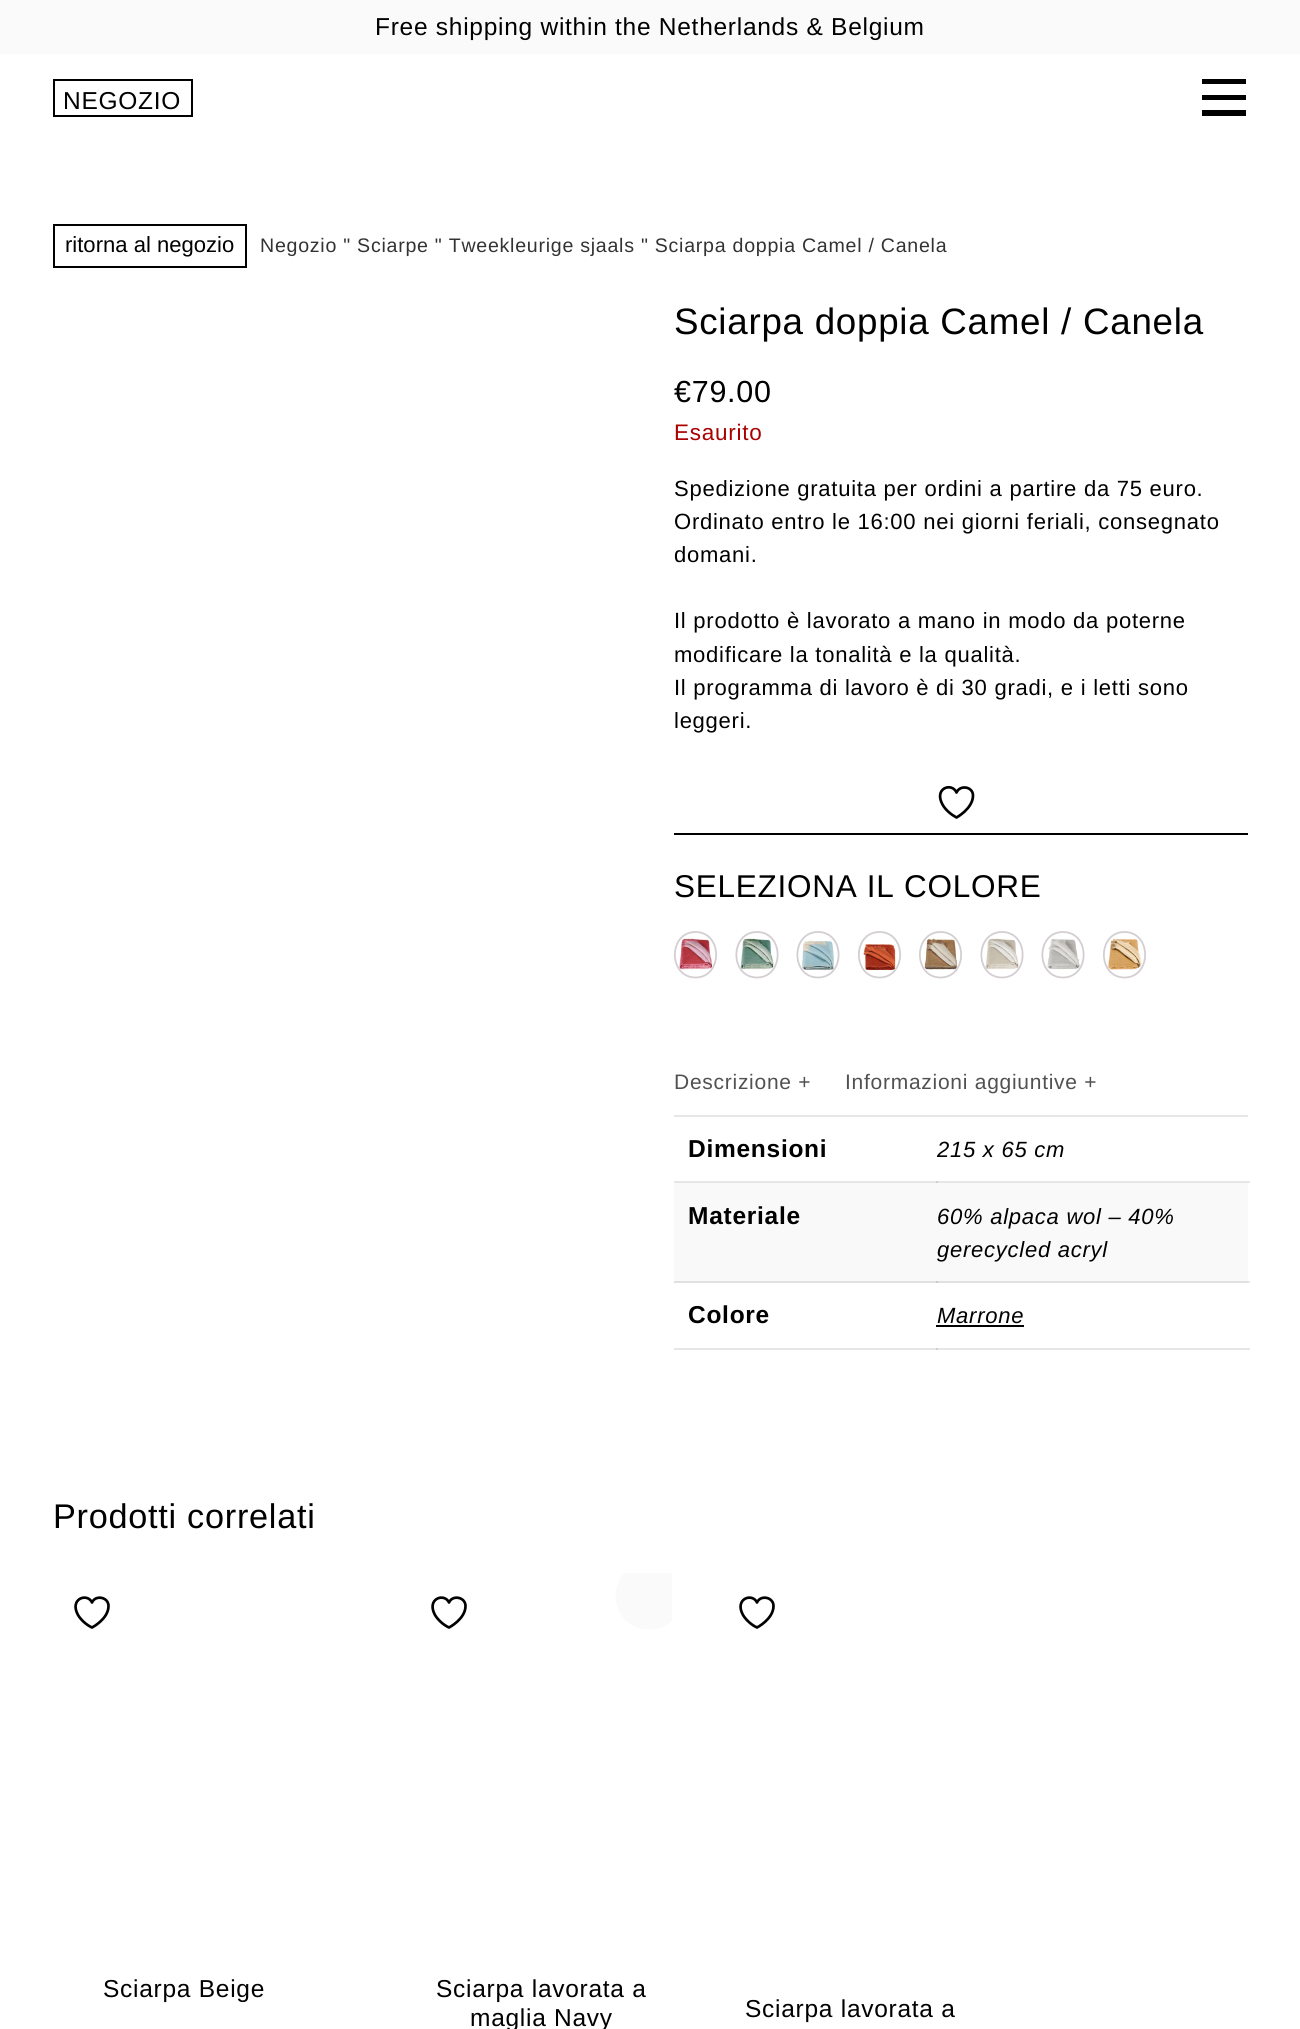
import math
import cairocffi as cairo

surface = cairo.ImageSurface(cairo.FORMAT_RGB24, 1300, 2029)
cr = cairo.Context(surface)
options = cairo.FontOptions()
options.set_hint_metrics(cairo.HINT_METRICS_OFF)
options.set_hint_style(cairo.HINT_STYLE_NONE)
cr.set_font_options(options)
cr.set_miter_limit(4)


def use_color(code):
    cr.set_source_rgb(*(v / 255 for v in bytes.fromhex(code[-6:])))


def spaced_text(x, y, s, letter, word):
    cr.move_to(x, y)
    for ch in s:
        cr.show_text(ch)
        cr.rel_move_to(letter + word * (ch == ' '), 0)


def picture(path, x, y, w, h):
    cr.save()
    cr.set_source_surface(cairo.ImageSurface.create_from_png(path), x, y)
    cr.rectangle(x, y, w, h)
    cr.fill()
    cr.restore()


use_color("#ffffff")
cr.paint()
use_color("#e6e6e6")
cr.rectangle(674, 1181, 576, 2)
cr.fill()
cr.rectangle(1248, 1281, 2, 2)
cr.fill()
cr.rectangle(674, 1348, 576, 2)
cr.fill()
use_color("#fafafa")
cr.rectangle(0, 0, 1300, 54)
cr.fill()
cr.select_font_face("Liberation Sans")
cr.set_font_size(24.5)
use_color("#000000")
spaced_text(375, 35, "Free shipping within the Netherlands & Belgium", 0.73, 0)
cr.rectangle(54, 80, 138, 36)
cr.stroke()
spaced_text(63, 109, "NEGOZIO", 0.73, 0)
cr.rectangle(1202, 79, 46, 5)
cr.fill()
use_color("#ffffff")
cr.rectangle(1246, 79, 2, 7)
cr.fill()
use_color("#000000")
cr.rectangle(1202, 95, 46, 5)
cr.fill()
use_color("#ffffff")
cr.rectangle(1246, 95, 2, 7)
cr.fill()
use_color("#000000")
cr.rectangle(1202, 110, 46, 6)
cr.fill()
use_color("#ffffff")
cr.rectangle(1246, 110, 2, 7)
cr.fill()
cr.rectangle(54, 225, 192, 42)
use_color("#000000")
cr.stroke()
cr.set_font_size(22.05)
cr.move_to(65, 252)
cr.show_text("ritorna al negozio")
cr.set_font_size(19.6)
use_color("#333333")
spaced_text(260, 252, "Negozio \" Sciarpe \" Tweekleurige sjaals \" Sciarpa doppia Camel / Canela", 0.73, 0)
cr.set_font_size(36.75)
use_color("#000000")
spaced_text(674, 334, "Sciarpa doppia Camel / Canela", 0.73, 0)
cr.set_font_size(30.5)
spaced_text(674, 402, "€79.00", 0.73, 0)
cr.set_font_size(22.5)
use_color("#aa0000")
spaced_text(674, 440, "Esaurito", 0.73, 0)
cr.set_font_size(22.05)
use_color("#000000")
spaced_text(674, 496, "Spedizione gratuita per ordini a partire da 75 euro.", 0.73, 0)
spaced_text(674, 529, "Ordinato entro le 16:00 nei giorni feriali, consegnato", 0.73, 0)
spaced_text(674, 562, "domani.", 0.73, 0)
spaced_text(674, 628, "Il prodotto è lavorato a mano in modo da poterne", 0.73, 0)
spaced_text(674, 662, "modificare la tonalità e la qualità.", 0.73, 0)
spaced_text(674, 695, "Il programma di lavoro è di 30 gradi, e i letti sono", 0.73, 0)
spaced_text(674, 728, "leggeri.", 0.73, 0)
cr.new_path()
cr.move_to(973, 795.5)
cr.curve_to(973, 786.5, 960, 784.5, 956.5, 792.5)
cr.curve_to(952, 782, 933.5, 788, 942.5, 804.5)
cr.curve_to(945.5, 810, 951, 814.5, 956.5, 817.5)
cr.curve_to(956.5, 817.5, 973, 808.5, 973, 795.5)
cr.close_path()
cr.set_line_width(2.7)
cr.set_line_cap(cairo.LINE_CAP_ROUND)
cr.set_line_join(cairo.LINE_JOIN_ROUND)
cr.stroke()
cr.rectangle(674, 833, 574, 2)
cr.fill()
cr.set_font_size(31.5)
spaced_text(674, 897, "SELEZIONA IL COLORE", 0.73, 0)
picture("img1.png", 679, 938, 34, 32)
cr.new_path()
cr.move_to(695.5, 932)
cr.curve_to(723, 932, 723, 977.5, 695.5, 977.5)
cr.curve_to(668, 977.5, 668, 932, 695.5, 932)
cr.close_path()
use_color("#d3ced2")
cr.set_line_width(1.8)
cr.set_line_cap(cairo.LINE_CAP_BUTT)
cr.set_line_join(cairo.LINE_JOIN_MITER)
cr.stroke()
picture("img2.png", 740, 938, 34, 32)
cr.new_path()
cr.move_to(757, 932)
cr.curve_to(784.5, 932, 784.5, 977.5, 757, 977.5)
cr.curve_to(729.5, 977.5, 729.5, 932, 757, 932)
cr.close_path()
cr.stroke()
picture("img3.png", 802, 940, 32, 31)
cr.new_path()
cr.move_to(818, 932)
cr.curve_to(845.5, 932, 845.5, 977.5, 818, 977.5)
cr.curve_to(790.5, 977.5, 790.5, 932, 818, 932)
cr.close_path()
cr.stroke()
picture("img4.png", 863, 944, 33, 27)
cr.new_path()
cr.move_to(879.5, 932)
cr.curve_to(907, 932, 907, 977.5, 879.5, 977.5)
cr.curve_to(852, 977.5, 852, 932, 879.5, 932)
cr.close_path()
cr.stroke()
picture("img5.png", 924, 938, 34, 32)
cr.new_path()
cr.move_to(940.5, 932)
cr.curve_to(968, 932, 968, 977.5, 940.5, 977.5)
cr.curve_to(913, 977.5, 913, 932, 940.5, 932)
cr.close_path()
cr.stroke()
picture("img6.png", 985, 938, 34, 32)
cr.new_path()
cr.move_to(1002, 932)
cr.curve_to(1029.5, 932, 1029.5, 977.5, 1002, 977.5)
cr.curve_to(974.5, 977.5, 974.5, 932, 1002, 932)
cr.close_path()
cr.stroke()
picture("img7.png", 1047, 939, 33, 31)
cr.new_path()
cr.move_to(1063, 932)
cr.curve_to(1090.5, 932, 1090.5, 977.5, 1063, 977.5)
cr.curve_to(1035.5, 977.5, 1035.5, 932, 1063, 932)
cr.close_path()
cr.stroke()
picture("img8.png", 1107, 938, 35, 32)
cr.new_path()
cr.move_to(1124.5, 932)
cr.curve_to(1152, 932, 1152, 977.5, 1124.5, 977.5)
cr.curve_to(1097, 977.5, 1097, 932, 1124.5, 932)
cr.close_path()
cr.stroke()
cr.set_font_size(21)
use_color("#515151")
spaced_text(674, 1089, "Descrizione +", 0.73, 0)
spaced_text(845, 1089, "Informazioni aggiuntive +", 0.73, 0)
use_color("#e6e6e6")
cr.rectangle(674, 1115, 574, 2)
cr.fill()
cr.select_font_face("Liberation Sans", cairo.FONT_SLANT_NORMAL, cairo.FONT_WEIGHT_BOLD)
cr.set_font_size(24.5)
use_color("#000000")
spaced_text(688, 1157, "Dimensioni", 0.73, 0)
use_color("#cfcfcf")
cr.rectangle(936, 1181, 2, 2)
cr.fill()
cr.select_font_face("Liberation Sans", cairo.FONT_SLANT_ITALIC)
cr.set_font_size(22.05)
use_color("#000000")
spaced_text(937, 1157, "215 x 65 cm", 0.73, 0)
use_color("#f9f9f9")
cr.rectangle(674, 1183, 574, 98)
cr.fill()
use_color("#e0e0e0")
cr.rectangle(674, 1281, 574, 2)
cr.fill()
cr.select_font_face("Liberation Sans", cairo.FONT_SLANT_NORMAL, cairo.FONT_WEIGHT_BOLD)
cr.set_font_size(24.5)
use_color("#000000")
spaced_text(688, 1224, "Materiale", 0.73, 0)
use_color("#cacaca")
cr.rectangle(936, 1281, 2, 2)
cr.fill()
cr.select_font_face("Liberation Sans", cairo.FONT_SLANT_ITALIC)
cr.set_font_size(22.05)
use_color("#000000")
spaced_text(937, 1224, "60% alpaca wol – 40%", 0.73, 0)
spaced_text(937, 1257, "gerecycled acryl", 0.73, 0)
cr.select_font_face("Liberation Sans", cairo.FONT_SLANT_NORMAL, cairo.FONT_WEIGHT_BOLD)
cr.set_font_size(24.5)
spaced_text(688, 1323, "Colore", 0.73, 0)
use_color("#cfcfcf")
cr.rectangle(936, 1348, 2, 2)
cr.fill()
cr.select_font_face("Liberation Sans", cairo.FONT_SLANT_ITALIC)
cr.set_font_size(22.05)
use_color("#000000")
spaced_text(937, 1323, "Marrone", 0.73, 0)
cr.rectangle(936, 1325, 88, 2)
cr.fill()
cr.select_font_face("Liberation Sans")
cr.set_font_size(34.25)
spaced_text(53, 1528, "Prodotti correlati", 0.73, 0)
cr.new_path()
cr.move_to(108.5, 1606)
cr.curve_to(108.5, 1597, 95.5, 1594.5, 92, 1602.5)
cr.curve_to(87.5, 1592.5, 69, 1598.5, 78, 1615)
cr.curve_to(81, 1620, 86.5, 1625, 92, 1627.5)
cr.curve_to(92, 1627.5, 108.5, 1619, 108.5, 1606)
cr.close_path()
cr.set_line_width(2.7)
cr.set_line_cap(cairo.LINE_CAP_ROUND)
cr.set_line_join(cairo.LINE_JOIN_ROUND)
cr.stroke()
cr.set_font_size(24.5)
spaced_text(103, 1997, "Sciarpa Beige", 0.73, 0)
cr.new_path()
cr.move_to(465.5, 1606)
cr.curve_to(465.5, 1597, 452.5, 1594.5, 449, 1602.5)
cr.curve_to(444.5, 1592.5, 426, 1598.5, 435, 1615)
cr.curve_to(438, 1620, 443.5, 1625, 449, 1627.5)
cr.curve_to(449, 1627.5, 465.5, 1619, 465.5, 1606)
cr.close_path()
cr.stroke()
cr.save()
cr.rectangle(410, 1573, 262, 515)
cr.clip()
use_color("#fafafa")
cr.new_path()
cr.move_to(643, 1563)
cr.curve_to(662, 1559, 679, 1572, 683, 1590)
cr.curve_to(686, 1609, 674, 1626, 655, 1629)
cr.curve_to(637, 1633, 619, 1620, 616, 1602)
cr.curve_to(613, 1583, 625, 1566, 643, 1563)
cr.close_path()
cr.fill()
cr.restore()
spaced_text(436, 1997, "Sciarpa lavorata a", 0.73, 0)
spaced_text(470, 2026, "maglia Navy", 0.73, 0)
cr.new_path()
cr.move_to(773.5, 1606)
cr.curve_to(773.5, 1597, 760.5, 1594.5, 757, 1602.5)
cr.curve_to(752.5, 1592.5, 734, 1598.5, 743, 1615)
cr.curve_to(746, 1620, 751.5, 1625, 757, 1627.5)
cr.curve_to(757, 1627.5, 773.5, 1619, 773.5, 1606)
cr.close_path()
cr.stroke()
spaced_text(745, 2017, "Sciarpa lavorata a", 0.73, 0)
surface.write_to_png("result.png")
